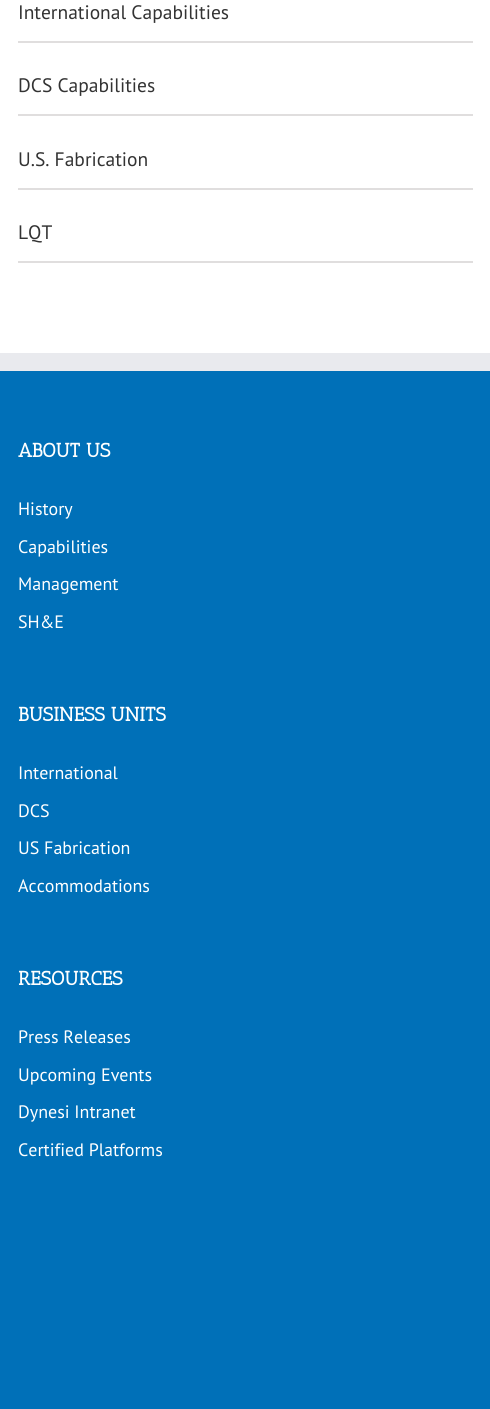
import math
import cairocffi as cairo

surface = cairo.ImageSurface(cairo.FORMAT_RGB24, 490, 1409)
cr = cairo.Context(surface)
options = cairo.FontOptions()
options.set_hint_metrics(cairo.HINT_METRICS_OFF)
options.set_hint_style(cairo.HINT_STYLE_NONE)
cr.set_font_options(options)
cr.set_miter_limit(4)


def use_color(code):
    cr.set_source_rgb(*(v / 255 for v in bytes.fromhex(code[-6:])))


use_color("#ffffff")
cr.paint()
use_color("#e0dede")
cr.rectangle(18, 41, 455, 2)
cr.fill()
cr.select_font_face("PT Sans")
cr.set_font_size(19.5)
use_color("#333333")
cr.move_to(18, 19)
cr.show_text("International Capabilities")
use_color("#e0dede")
cr.rectangle(18, 114, 455, 2)
cr.fill()
use_color("#333333")
cr.move_to(18, 92)
cr.show_text("DCS Capabilities")
use_color("#e0dede")
cr.rectangle(18, 188, 455, 2)
cr.fill()
use_color("#333333")
cr.move_to(18, 166)
cr.show_text("U.S. Fabrication")
use_color("#e0dede")
cr.rectangle(18, 261, 455, 2)
cr.fill()
use_color("#333333")
cr.move_to(18, 239)
cr.show_text("LQT")
use_color("#0070b8")
cr.rectangle(0, 371, 490, 1038)
cr.fill()
use_color("#e9eaee")
cr.rectangle(0, 353, 490, 18)
cr.fill()
cr.select_font_face("Antic Slab", cairo.FONT_SLANT_NORMAL, cairo.FONT_WEIGHT_BOLD)
use_color("#ffffff")
cr.move_to(18, 457)
cr.show_text("ABOUT US")
cr.select_font_face("PT Sans")
cr.set_font_size(18)
cr.move_to(18, 515)
cr.show_text("History")
cr.move_to(18, 553)
cr.show_text("Capabilities")
cr.move_to(18, 590)
cr.show_text("Management")
cr.move_to(18, 628)
cr.show_text("SH&E")
cr.select_font_face("Antic Slab", cairo.FONT_SLANT_NORMAL, cairo.FONT_WEIGHT_BOLD)
cr.set_font_size(19.5)
cr.move_to(18, 721)
cr.show_text("BUSINESS UNITS")
cr.select_font_face("PT Sans")
cr.set_font_size(18)
cr.move_to(18, 779)
cr.show_text("International")
cr.move_to(18, 817)
cr.show_text("DCS")
cr.move_to(18, 854)
cr.show_text("US Fabrication")
cr.move_to(18, 892)
cr.show_text("Accommodations")
cr.select_font_face("Antic Slab", cairo.FONT_SLANT_NORMAL, cairo.FONT_WEIGHT_BOLD)
cr.set_font_size(19.5)
cr.move_to(18, 985)
cr.show_text("RESOURCES")
cr.select_font_face("PT Sans")
cr.set_font_size(18)
cr.move_to(18, 1043)
cr.show_text("Press Releases")
cr.move_to(18, 1081)
cr.show_text("Upcoming Events")
cr.move_to(18, 1118)
cr.show_text("Dynesi Intranet")
cr.move_to(18, 1156)
cr.show_text("Certified Platforms")
surface.write_to_png("result.png")
